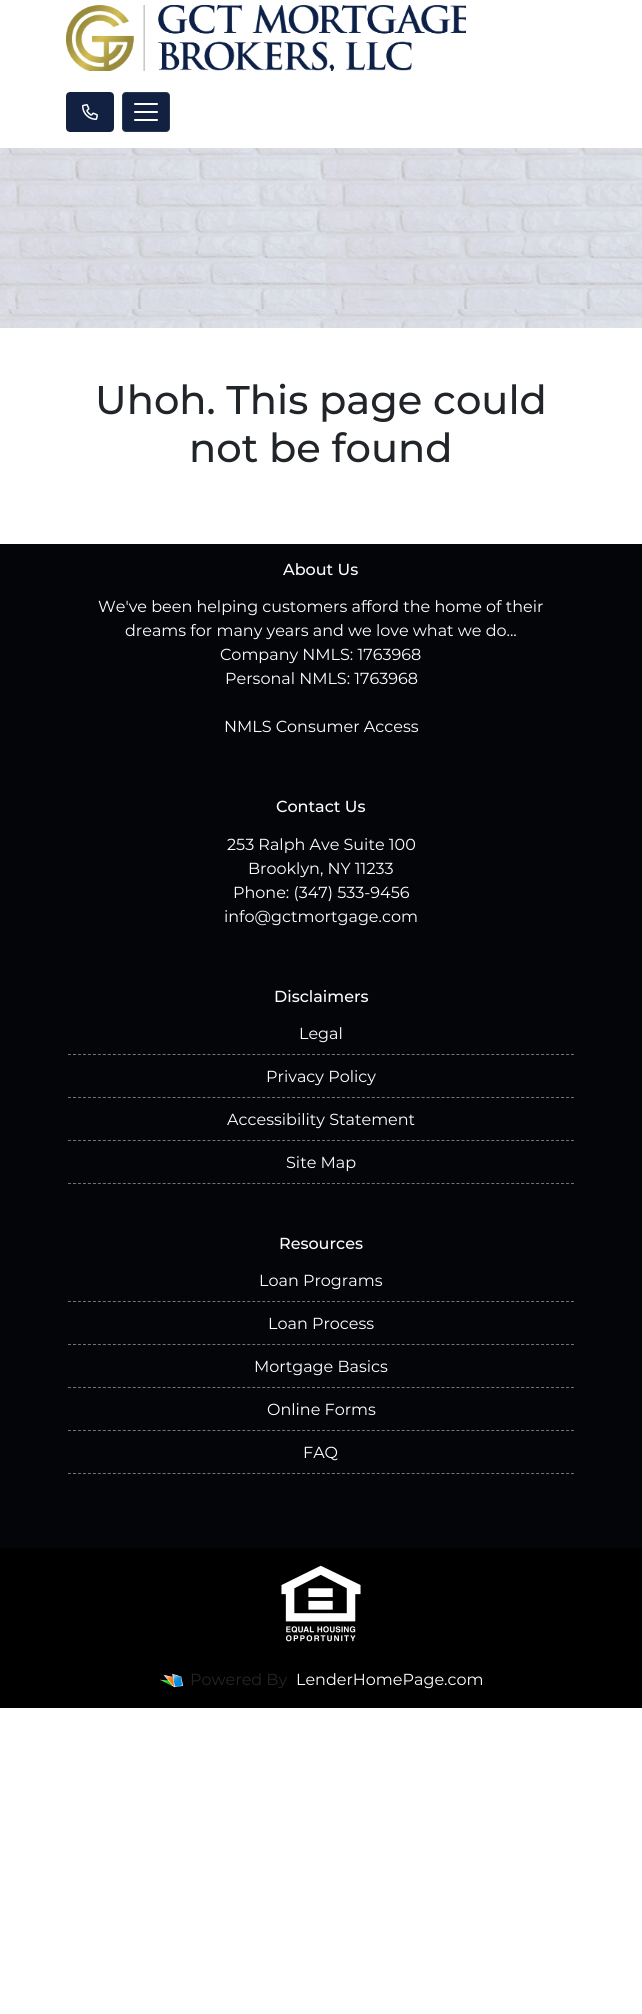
import math
import cairocffi as cairo

surface = cairo.ImageSurface(cairo.FORMAT_RGB24, 642, 2014)
cr = cairo.Context(surface)
options = cairo.FontOptions()
options.set_hint_metrics(cairo.HINT_METRICS_OFF)
options.set_hint_style(cairo.HINT_STYLE_NONE)
cr.set_font_options(options)
cr.set_miter_limit(4)


def use_color(code):
    cr.set_source_rgb(*(v / 255 for v in bytes.fromhex(code[-6:])))


def round_rect(x, y, w, h, r):
    cr.new_sub_path()
    for i, (u, v) in enumerate([(x + w - r, y + h - r), (x + r, y + h - r), (x + r, y + r), (x + w - r, y + r)]):
        cr.arc(u, v, r, i * math.pi / 2, (i + 1) * math.pi / 2)
    cr.close_path()


def picture(path, x, y, w, h):
    cr.save()
    cr.set_source_surface(cairo.ImageSurface.create_from_png(path), x, y)
    cr.rectangle(x, y, w, h)
    cr.fill()
    cr.restore()


use_color("#ffffff")
cr.paint()
picture("img1.png", 66, 5, 400, 66)
use_color("#122141")
round_rect(67.5, 93.5, 45, 37, 2.5)
cr.fill_preserve()
cr.set_line_width(3)
cr.stroke()
picture("img2.png", 82, 104, 16, 16)
round_rect(122, 92, 48, 40, 4)
cr.fill()
round_rect(122.5, 92.5, 47, 39, 3.5)
cr.set_source_rgba(1, 1, 1, 0.1)
cr.set_line_width(1)
cr.stroke()
picture("img3.png", 134, 103, 24, 18)
picture("img4.png", 0, 148, 642, 180)
cr.select_font_face("Montserrat Medium")
cr.set_font_size(40)
use_color("#212529")
cr.move_to(95, 414)
cr.show_text("Uhoh. This page could")
cr.move_to(189, 462)
cr.show_text("not be found")
use_color("#030509")
cr.rectangle(0, 544, 642, 1004)
cr.fill()
cr.set_font_size(16)
use_color("#ffffff")
cr.move_to(283, 575)
cr.show_text("About Us")
cr.select_font_face("Montserrat")
cr.move_to(98, 612)
cr.show_text("We've been helping customers afford the home of their")
cr.move_to(125, 636)
cr.show_text("dreams for many years and we love what we do...")
cr.move_to(220, 660)
cr.show_text("Company NMLS: 1763968")
cr.move_to(225, 684)
cr.show_text("Personal NMLS: 1763968")
cr.move_to(224, 732)
cr.show_text("NMLS Consumer Access")
cr.select_font_face("Montserrat Medium")
cr.move_to(276, 812)
cr.show_text("Contact Us")
cr.select_font_face("Montserrat")
cr.move_to(227, 850)
cr.show_text("253 Ralph Ave Suite 100")
cr.move_to(248, 874)
cr.show_text("Brooklyn, NY 11233")
cr.move_to(233, 898)
cr.show_text("Phone: (347) 533-9456")
cr.move_to(224, 922)
cr.show_text("info@gctmortgage.com")
cr.select_font_face("Montserrat Medium")
cr.move_to(274, 1002)
cr.show_text("Disclaimers")
cr.new_path()
cr.move_to(68, 1054.5)
cr.line_to(574, 1054.5)
use_color("#6c757d")
cr.set_dash([3, 1.98])
cr.stroke()
cr.select_font_face("Montserrat")
use_color("#ffffff")
cr.move_to(299, 1039)
cr.show_text("Legal")
cr.new_path()
cr.move_to(68, 1097.5)
cr.line_to(574, 1097.5)
use_color("#6c757d")
cr.stroke()
use_color("#ffffff")
cr.move_to(266, 1082)
cr.show_text("Privacy Policy")
cr.new_path()
cr.move_to(68, 1140.5)
cr.line_to(574, 1140.5)
use_color("#6c757d")
cr.stroke()
use_color("#ffffff")
cr.move_to(227, 1125)
cr.show_text("Accessibility Statement")
cr.new_path()
cr.move_to(68, 1183.5)
cr.line_to(574, 1183.5)
use_color("#6c757d")
cr.stroke()
use_color("#ffffff")
cr.move_to(286, 1168)
cr.show_text("Site Map")
cr.select_font_face("Montserrat Medium")
cr.move_to(279, 1249)
cr.show_text("Resources")
cr.new_path()
cr.move_to(68, 1301.5)
cr.line_to(574, 1301.5)
use_color("#6c757d")
cr.stroke()
cr.select_font_face("Montserrat")
use_color("#ffffff")
cr.move_to(259, 1286)
cr.show_text("Loan Programs")
cr.new_path()
cr.move_to(68, 1344.5)
cr.line_to(574, 1344.5)
use_color("#6c757d")
cr.stroke()
use_color("#ffffff")
cr.move_to(268, 1329)
cr.show_text("Loan Process")
cr.new_path()
cr.move_to(68, 1387.5)
cr.line_to(574, 1387.5)
use_color("#6c757d")
cr.stroke()
use_color("#ffffff")
cr.move_to(254, 1372)
cr.show_text("Mortgage Basics")
cr.new_path()
cr.move_to(68, 1430.5)
cr.line_to(574, 1430.5)
use_color("#6c757d")
cr.stroke()
use_color("#ffffff")
cr.move_to(267, 1415)
cr.show_text("Online Forms")
cr.new_path()
cr.move_to(68, 1473.5)
cr.line_to(574, 1473.5)
use_color("#6c757d")
cr.stroke()
use_color("#ffffff")
cr.move_to(303, 1458)
cr.show_text("FAQ")
use_color("#000000")
cr.rectangle(0, 1548, 642, 160)
cr.fill()
picture("img5.png", 281, 1565, 80, 77)
picture("img6.png", 159, 1673, 25, 15)
use_color("#212529")
cr.move_to(190, 1685)
cr.show_text("Powered By")
use_color("#ffffff")
cr.move_to(296, 1685)
cr.show_text("LenderHomePage.com")
surface.write_to_png("result.png")
